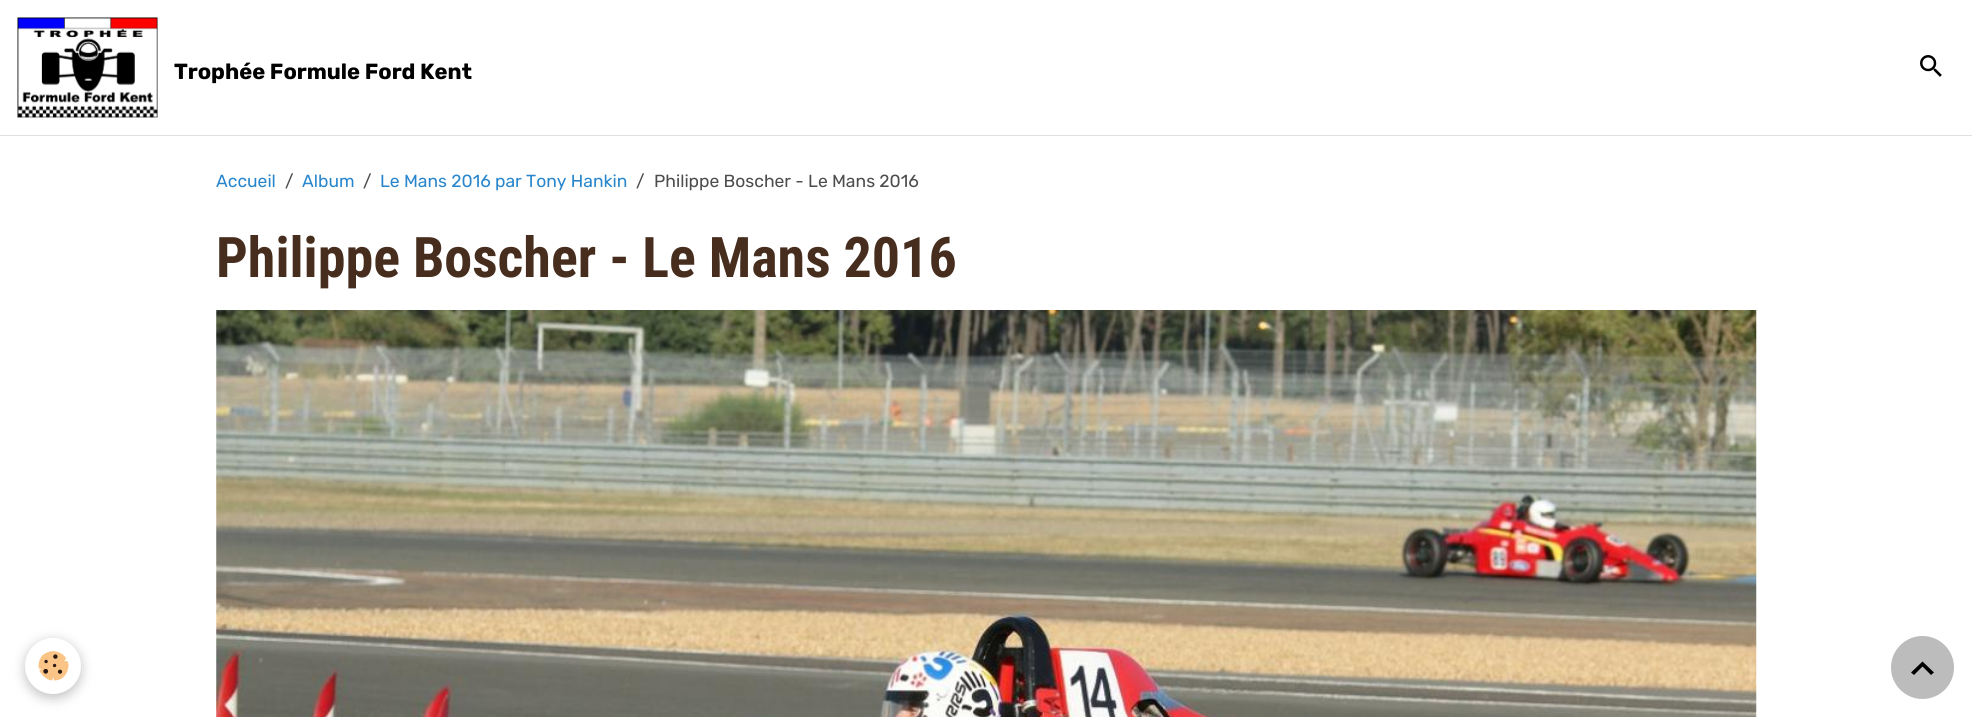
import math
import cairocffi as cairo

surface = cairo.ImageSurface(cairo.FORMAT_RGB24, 1972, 717)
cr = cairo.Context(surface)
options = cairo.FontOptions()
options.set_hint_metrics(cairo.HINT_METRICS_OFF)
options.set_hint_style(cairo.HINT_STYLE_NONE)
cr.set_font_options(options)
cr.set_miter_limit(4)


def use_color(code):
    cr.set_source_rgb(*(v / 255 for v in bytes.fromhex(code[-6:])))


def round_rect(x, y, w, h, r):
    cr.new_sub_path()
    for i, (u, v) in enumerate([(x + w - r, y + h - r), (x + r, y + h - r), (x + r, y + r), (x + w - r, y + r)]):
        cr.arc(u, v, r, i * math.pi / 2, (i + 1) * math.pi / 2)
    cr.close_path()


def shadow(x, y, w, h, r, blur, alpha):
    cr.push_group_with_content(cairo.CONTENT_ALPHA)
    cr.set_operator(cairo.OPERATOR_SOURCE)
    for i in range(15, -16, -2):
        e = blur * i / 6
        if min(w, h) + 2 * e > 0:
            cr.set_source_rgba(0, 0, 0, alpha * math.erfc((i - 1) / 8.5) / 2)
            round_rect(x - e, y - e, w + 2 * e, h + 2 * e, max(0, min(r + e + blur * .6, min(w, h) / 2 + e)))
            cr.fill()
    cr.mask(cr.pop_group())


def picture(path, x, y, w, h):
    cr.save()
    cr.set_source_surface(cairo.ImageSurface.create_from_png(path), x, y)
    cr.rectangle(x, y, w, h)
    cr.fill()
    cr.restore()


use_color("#ffffff")
cr.paint()
use_color("#e0e0e0")
cr.rectangle(0, 135, 1972, 1)
cr.fill()
picture("img1.png", 17, 17, 141, 101)
cr.select_font_face("Rubik", cairo.FONT_SLANT_NORMAL, cairo.FONT_WEIGHT_BOLD)
cr.set_font_size(21.9)
use_color("#000000")
cr.move_to(174, 79)
cr.show_text("Trophée Formule Ford Kent")
picture("img2.png", 1920, 55, 22, 22)
cr.select_font_face("Rubik")
cr.set_font_size(17.5)
use_color("#2986cc")
cr.move_to(216, 187)
cr.show_text("Accueil")
use_color("#4d4d4d")
cr.move_to(285, 187)
cr.show_text("/")
use_color("#2986cc")
cr.move_to(302, 187)
cr.show_text("Album")
use_color("#4d4d4d")
cr.move_to(363, 187)
cr.show_text("/")
use_color("#2986cc")
cr.move_to(380, 187)
cr.show_text("Le Mans 2016 par Tony Hankin")
use_color("#4d4d4d")
cr.move_to(636, 187)
cr.show_text("/")
cr.move_to(654, 187)
cr.show_text("Philippe Boscher - Le Mans 2016")
cr.select_font_face("Roboto Condensed", cairo.FONT_SLANT_NORMAL, cairo.FONT_WEIGHT_BOLD)
cr.set_font_size(56)
use_color("#462d1e")
cr.move_to(216, 277)
cr.show_text("Philippe Boscher - Le Mans 2016")
picture("img3.png", 216, 310, 1541, 407)
use_color("#000000")
shadow(25, 641, 56, 57, 28, 6, 0.24)
use_color("#ffffff")
cr.arc(53, 666, 28, 0, 2 * math.pi)
cr.fill()
picture("img4.png", 38, 651, 31, 30)
use_color("#bcbcbc")
cr.arc(1922.5, 667.5, 31.5, 0, 2 * math.pi)
cr.fill()
use_color("#000000")
cr.new_path()
cr.move_to(1922.5, 661.5)
cr.line_to(1934, 672.5)
cr.line_to(1931, 675)
cr.line_to(1922.5, 666.5)
cr.line_to(1914, 675)
cr.line_to(1911, 672.5)
cr.close_path()
cr.fill()
surface.write_to_png("result.png")
